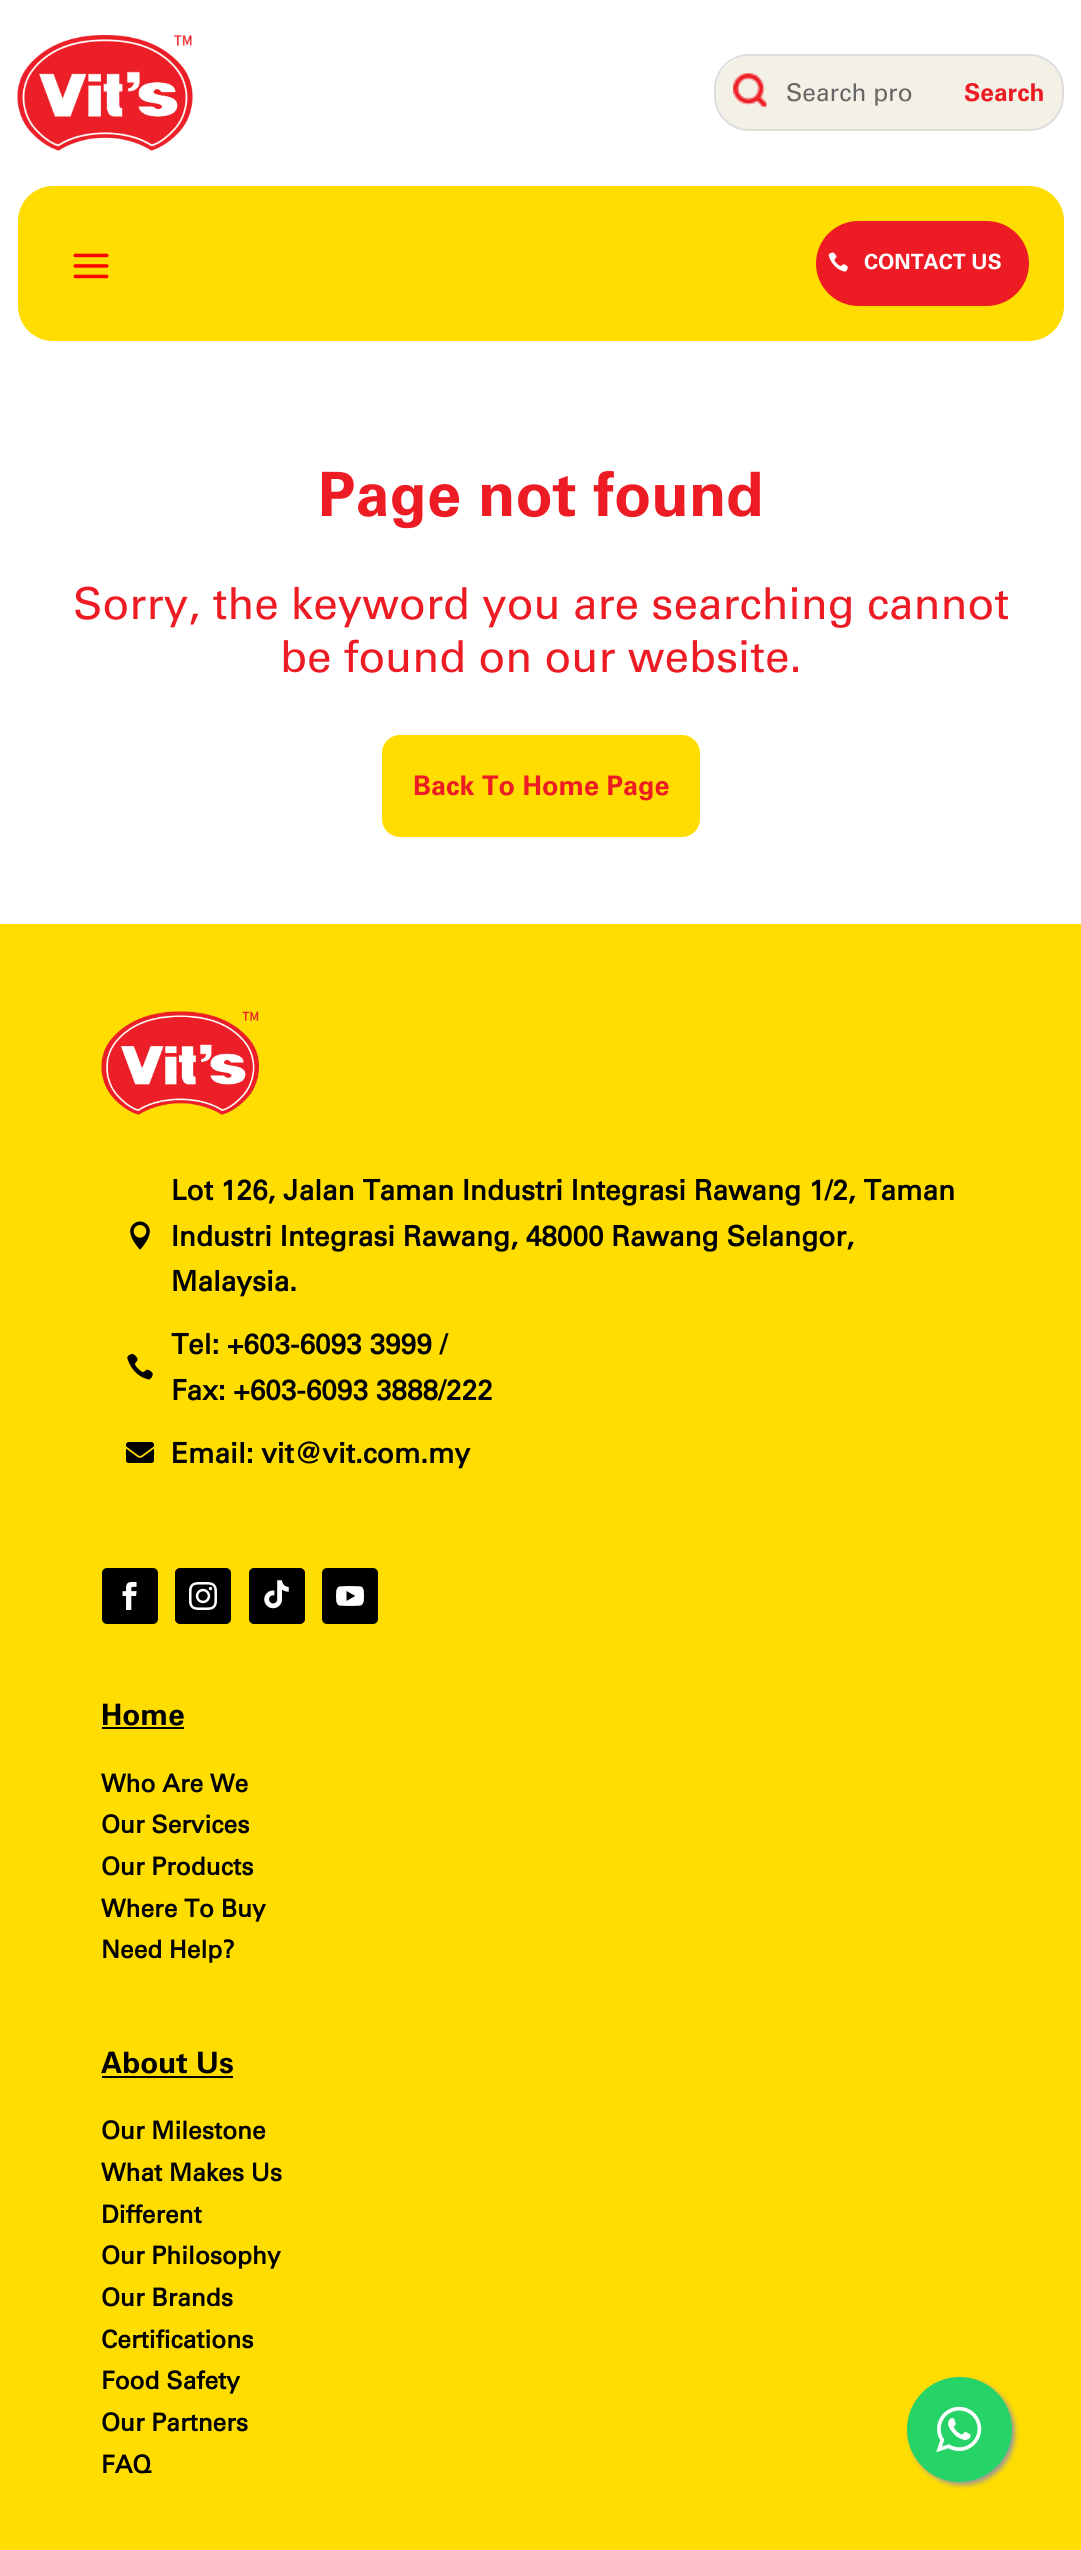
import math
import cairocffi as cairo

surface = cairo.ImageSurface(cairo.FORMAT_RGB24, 1081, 2550)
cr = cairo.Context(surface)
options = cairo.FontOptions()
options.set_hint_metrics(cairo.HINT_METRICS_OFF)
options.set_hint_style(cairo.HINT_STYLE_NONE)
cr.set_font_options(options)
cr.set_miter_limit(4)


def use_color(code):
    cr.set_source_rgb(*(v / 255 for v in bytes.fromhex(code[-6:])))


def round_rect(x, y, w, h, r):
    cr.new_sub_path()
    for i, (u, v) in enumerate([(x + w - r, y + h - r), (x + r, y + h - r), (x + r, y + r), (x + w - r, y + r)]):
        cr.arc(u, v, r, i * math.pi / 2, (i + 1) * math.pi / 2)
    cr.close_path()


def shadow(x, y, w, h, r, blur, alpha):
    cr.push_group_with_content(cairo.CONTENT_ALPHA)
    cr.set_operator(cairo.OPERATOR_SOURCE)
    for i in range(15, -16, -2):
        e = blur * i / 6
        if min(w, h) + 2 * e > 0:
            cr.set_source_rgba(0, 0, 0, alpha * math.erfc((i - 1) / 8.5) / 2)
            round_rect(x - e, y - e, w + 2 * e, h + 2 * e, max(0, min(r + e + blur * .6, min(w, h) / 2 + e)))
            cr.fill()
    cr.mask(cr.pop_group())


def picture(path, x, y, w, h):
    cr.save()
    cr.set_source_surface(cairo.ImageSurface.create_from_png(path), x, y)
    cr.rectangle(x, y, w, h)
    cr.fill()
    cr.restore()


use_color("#ffffff")
cr.paint()
picture("img1.png", 17, 35, 176, 116)
round_rect(715, 55, 348, 75, 34)
use_color("#dddddd")
cr.stroke()
cr.set_source_rgba(0.882, 0.851, 0.757, 0.41)
cr.new_path()
cr.move_to(751, 56)
cr.line_to(947, 56)
cr.line_to(947, 130)
cr.line_to(751, 130)
cr.curve_to(731.5, 130, 716, 114.5, 716, 95)
cr.line_to(716, 91)
cr.curve_to(716, 71.5, 731.5, 56, 751, 56)
cr.close_path()
cr.fill()
picture("img2.png", 733, 73, 34, 34)
cr.select_font_face("Univers")
cr.set_font_size(24.5)
use_color("#666666")
cr.move_to(786, 101)
cr.show_text("Search pro")
cr.set_source_rgba(0.882, 0.851, 0.757, 0.41)
cr.new_path()
cr.move_to(947, 56)
cr.line_to(1029, 56)
cr.curve_to(1047, 56, 1062, 71, 1062, 89)
cr.line_to(1062, 97)
cr.curve_to(1062, 115, 1047, 130, 1029, 130)
cr.line_to(947, 130)
cr.close_path()
cr.fill()
cr.select_font_face("Univers", cairo.FONT_SLANT_NORMAL, cairo.FONT_WEIGHT_BOLD)
use_color("#ed1c24")
cr.move_to(964, 101)
cr.show_text("Search")
use_color("#ffdd00")
round_rect(18, 186, 1046, 155, 35)
cr.fill()
picture("img3.png", 73, 253, 36, 26)
use_color("#ed1c24")
round_rect(816, 221, 213, 85, 42.5)
cr.fill()
picture("img4.png", 828, 252, 20, 20)
cr.set_font_size(21)
use_color("#ffffff")
cr.move_to(864, 269)
cr.show_text("CONTACT US")
cr.set_font_size(61.25)
use_color("#ed1c24")
cr.move_to(318, 516)
cr.show_text("Page not found")
cr.select_font_face("Univers")
cr.set_font_size(44.1)
cr.move_to(73, 619)
cr.show_text("Sorry, the keyword you are searching cannot")
cr.move_to(280, 672)
cr.show_text("be found on our website.")
use_color("#ffdd00")
round_rect(384, 737, 314, 98, 16)
cr.fill_preserve()
cr.set_line_width(4)
cr.stroke()
cr.select_font_face("Univers", cairo.FONT_SLANT_NORMAL, cairo.FONT_WEIGHT_BOLD)
cr.set_font_size(27)
use_color("#ed1c24")
cr.move_to(413, 795)
cr.show_text("Back To Home Page")
use_color("#ffdd00")
cr.rectangle(0, 924, 1081, 1626)
cr.fill()
picture("img5.png", 101, 1011, 158, 104)
picture("img6.png", 130, 1221, 20, 29)
cr.select_font_face("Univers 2", cairo.FONT_SLANT_NORMAL, cairo.FONT_WEIGHT_BOLD)
cr.set_font_size(28)
use_color("#000000")
cr.move_to(171, 1200)
cr.show_text("Lot 126, Jalan Taman Industri Integrasi Rawang 1/2, Taman")
cr.move_to(171, 1246)
cr.show_text("Industri Integrasi Rawang, 48000 Rawang Selangor,")
cr.move_to(171, 1291)
cr.show_text("Malaysia.")
picture("img7.png", 127, 1353, 26, 27)
cr.move_to(171, 1354)
cr.show_text("Tel: +603-6093 3999 /")
cr.move_to(171, 1400)
cr.show_text("Fax: +603-6093 3888/222")
picture("img8.png", 126, 1442, 28, 21)
cr.move_to(171, 1463)
cr.show_text("Email: vit@vit.com.my")
round_rect(102, 1568, 56, 56, 5)
cr.fill()
picture("img9.png", 122, 1582, 15, 28)
round_rect(175, 1568, 56, 56, 5)
cr.fill()
picture("img10.png", 189, 1582, 28, 28)
round_rect(249, 1568, 56, 56, 5)
cr.fill()
picture("img11.png", 264, 1580, 25, 29)
round_rect(322, 1568, 56, 56, 5)
cr.fill()
picture("img12.png", 336, 1586, 28, 20)
cr.select_font_face("Univers", cairo.FONT_SLANT_NORMAL, cairo.FONT_WEIGHT_BOLD)
cr.set_font_size(29.5)
cr.move_to(101, 1725)
cr.show_text("Home")
cr.rectangle(102, 1727, 82, 2)
cr.fill()
cr.select_font_face("Univers 2", cairo.FONT_SLANT_NORMAL, cairo.FONT_WEIGHT_BOLD)
cr.set_font_size(24.5)
cr.move_to(101, 1792)
cr.show_text("Who Are We")
cr.move_to(101, 1833)
cr.show_text("Our Services")
cr.move_to(101, 1875)
cr.show_text("Our Products")
cr.move_to(101, 1917)
cr.show_text("Where To Buy")
cr.move_to(101, 1958)
cr.show_text("Need Help?")
cr.select_font_face("Univers", cairo.FONT_SLANT_NORMAL, cairo.FONT_WEIGHT_BOLD)
cr.set_font_size(29.5)
cr.move_to(101, 2073)
cr.show_text("About Us")
cr.rectangle(102, 2076, 131, 2)
cr.fill()
cr.select_font_face("Univers 2", cairo.FONT_SLANT_NORMAL, cairo.FONT_WEIGHT_BOLD)
cr.set_font_size(24.5)
cr.move_to(101, 2139)
cr.show_text("Our Milestone")
cr.move_to(101, 2181)
cr.show_text("What Makes Us")
cr.move_to(101, 2223)
cr.show_text("Different")
cr.move_to(101, 2264)
cr.show_text("Our Philosophy")
cr.move_to(101, 2306)
cr.show_text("Our Brands")
cr.move_to(101, 2348)
cr.show_text("Certifications")
cr.move_to(101, 2389)
cr.show_text("Food Safety")
cr.move_to(101, 2431)
cr.show_text("Our Partners")
cr.move_to(101, 2473)
cr.show_text("FAQ")
use_color("#999999")
shadow(910, 2380, 105, 105, 52.5, 2.5, 1)
use_color("#25d366")
cr.arc(959.5, 2429.5, 52.5, 0, 2 * math.pi)
cr.fill()
picture("img13.png", 936, 2406, 46, 47)
surface.write_to_png("result.png")
